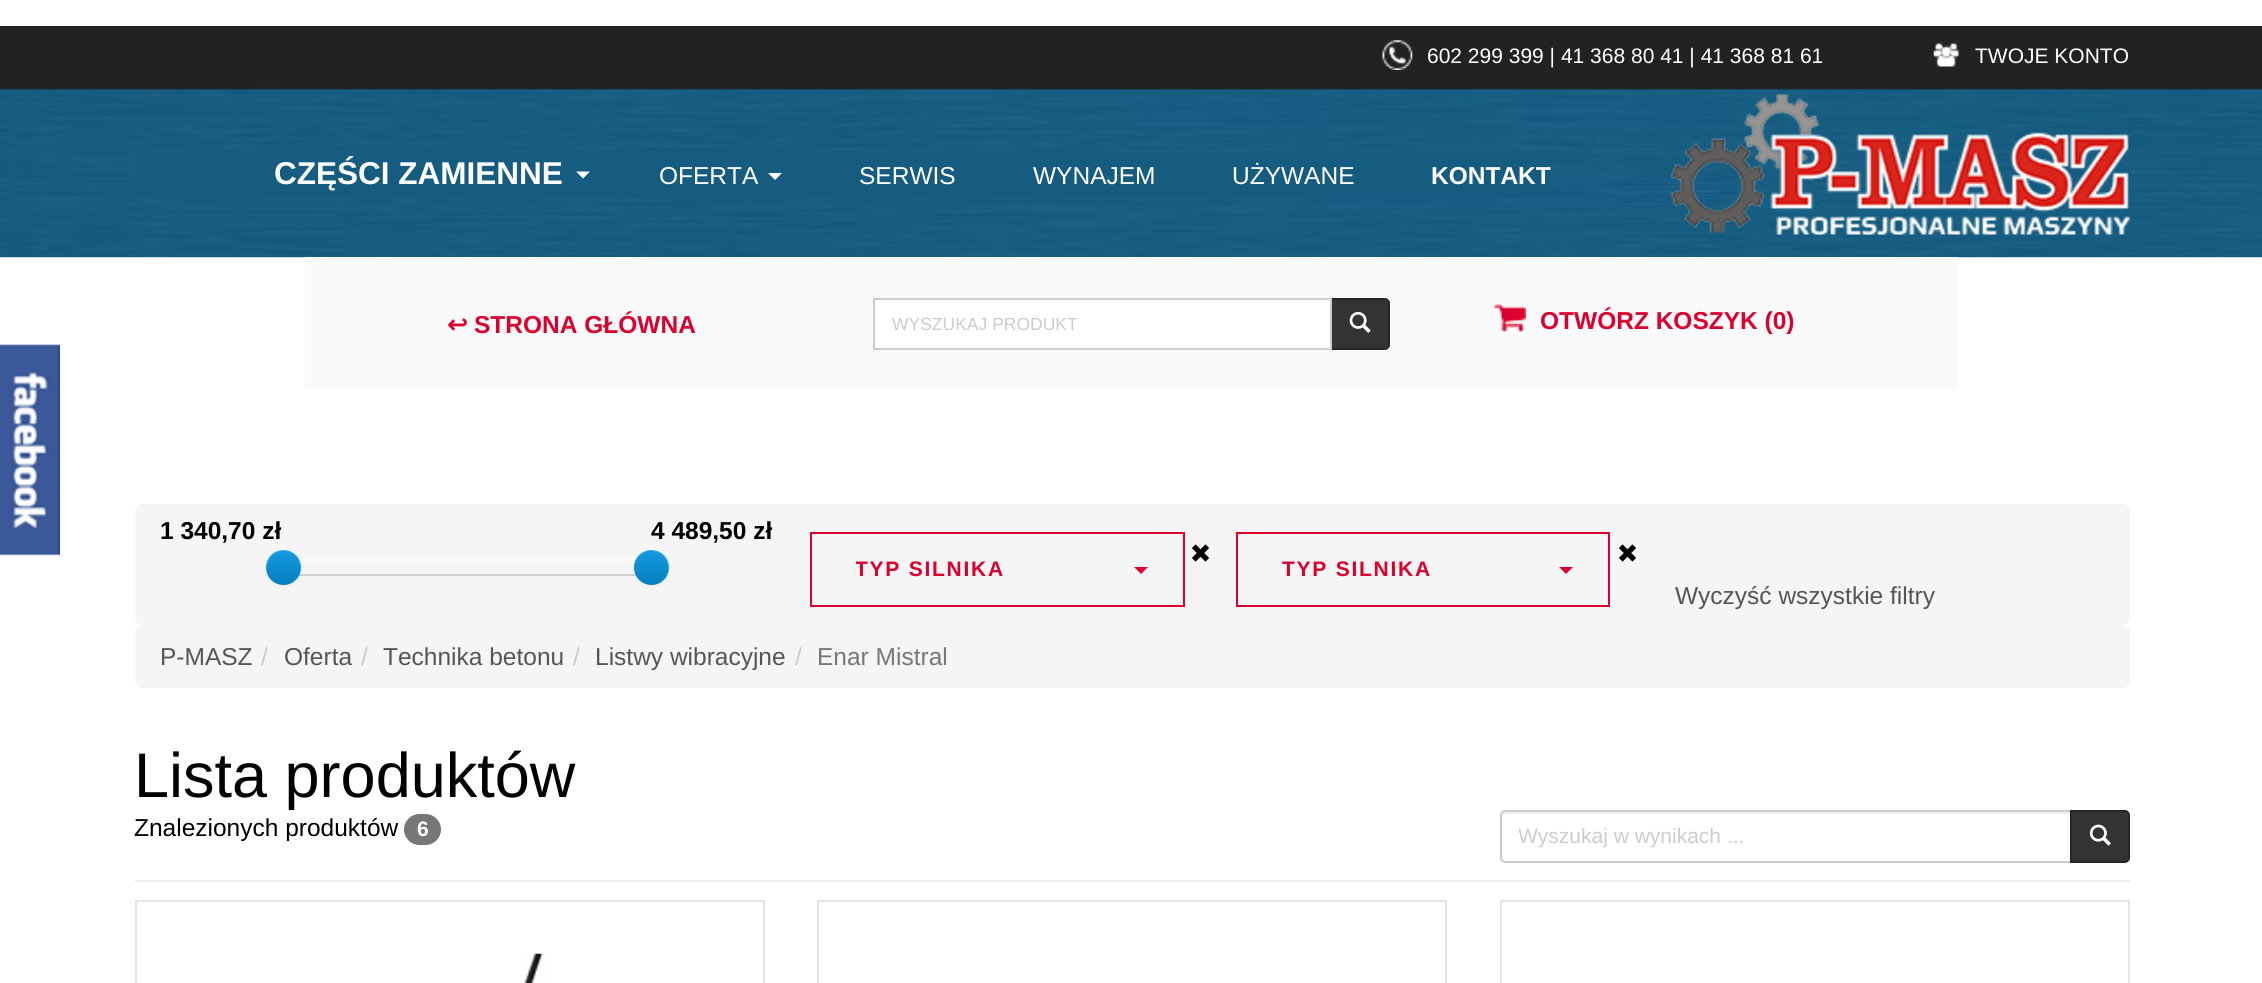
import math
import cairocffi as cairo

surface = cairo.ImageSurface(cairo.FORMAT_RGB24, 2262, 983)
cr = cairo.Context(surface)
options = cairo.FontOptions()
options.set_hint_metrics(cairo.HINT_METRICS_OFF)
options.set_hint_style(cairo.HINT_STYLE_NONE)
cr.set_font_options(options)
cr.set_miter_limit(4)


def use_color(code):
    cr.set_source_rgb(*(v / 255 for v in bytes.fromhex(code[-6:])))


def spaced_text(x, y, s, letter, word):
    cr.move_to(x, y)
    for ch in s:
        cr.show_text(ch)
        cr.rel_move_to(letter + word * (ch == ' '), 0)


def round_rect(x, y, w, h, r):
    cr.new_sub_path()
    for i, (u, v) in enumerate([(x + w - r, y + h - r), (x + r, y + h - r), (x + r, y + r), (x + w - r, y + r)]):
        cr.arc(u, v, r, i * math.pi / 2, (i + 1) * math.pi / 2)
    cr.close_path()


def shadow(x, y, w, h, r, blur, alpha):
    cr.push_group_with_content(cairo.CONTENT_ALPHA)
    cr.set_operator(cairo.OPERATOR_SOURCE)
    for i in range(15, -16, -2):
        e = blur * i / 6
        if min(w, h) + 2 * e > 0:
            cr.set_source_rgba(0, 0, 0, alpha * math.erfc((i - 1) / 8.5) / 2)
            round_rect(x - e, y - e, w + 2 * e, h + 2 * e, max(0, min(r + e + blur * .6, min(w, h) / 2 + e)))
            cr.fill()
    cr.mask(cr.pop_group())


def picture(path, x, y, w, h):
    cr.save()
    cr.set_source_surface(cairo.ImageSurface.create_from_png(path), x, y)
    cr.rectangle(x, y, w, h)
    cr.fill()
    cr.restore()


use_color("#ffffff")
cr.paint()
use_color("#222222")
cr.rectangle(0, 26, 2262, 60)
cr.fill()
picture("img1.png", 1382, 40, 31, 30)
cr.select_font_face("Liberation Sans")
cr.set_font_size(21)
use_color("#ffffff")
cr.move_to(1427, 63)
cr.show_text("602 299 399 | 41 368 80 41 | 41 368 81 61")
picture("img2.png", 1933, 42, 27, 25)
cr.move_to(1975, 63)
cr.show_text("TWOJE KONTO")
picture("img3.png", 0, 86, 2262, 172)
use_color("#165c80")
cr.rectangle(135, 152, 1416, 46)
cr.fill()
cr.select_font_face("Liberation Sans", cairo.FONT_SLANT_NORMAL, cairo.FONT_WEIGHT_BOLD)
cr.set_font_size(31.5)
use_color("#ffffff")
cr.move_to(274, 184)
cr.show_text("CZĘŚCI ZAMIENNE")
cr.new_path()
cr.move_to(576, 171.5)
cr.line_to(590, 171.5)
cr.line_to(583, 178.5)
cr.close_path()
cr.fill()
cr.select_font_face("Liberation Sans")
cr.set_font_size(24.5)
cr.move_to(659, 184)
cr.show_text("OFERTA")
cr.new_path()
cr.move_to(768, 173)
cr.line_to(782, 173)
cr.line_to(775, 180)
cr.close_path()
cr.fill()
cr.move_to(859, 184)
cr.show_text("SERWIS")
cr.move_to(1033, 184)
cr.show_text("WYNAJEM")
cr.move_to(1232, 184)
cr.show_text("UŻYWANE")
cr.select_font_face("Liberation Sans", cairo.FONT_SLANT_NORMAL, cairo.FONT_WEIGHT_BOLD)
cr.move_to(1431, 184)
cr.show_text("KONTAKT")
picture("img4.png", 1671, 94, 459, 141)
use_color("#fafafa")
cr.rectangle(305, 257, 1653, 133)
cr.fill()
cr.select_font_face("DejaVu Sans", cairo.FONT_SLANT_NORMAL, cairo.FONT_WEIGHT_BOLD)
use_color("#db002d")
cr.move_to(447, 333)
cr.show_text("↩")
cr.select_font_face("Liberation Sans", cairo.FONT_SLANT_NORMAL, cairo.FONT_WEIGHT_BOLD)
cr.move_to(474, 333)
cr.show_text("STRONA GŁÓWNA")
use_color("#333333")
cr.new_path()
cr.move_to(1331, 299)
cr.line_to(1385, 299)
cr.curve_to(1387, 299, 1389, 301, 1389, 303)
cr.line_to(1389, 345)
cr.curve_to(1389, 347, 1387, 349, 1385, 349)
cr.line_to(1331, 349)
cr.close_path()
cr.fill_preserve()
use_color("#262626")
cr.stroke()
use_color("#ffffff")
cr.rectangle(874, 299, 457, 50)
cr.fill_preserve()
use_color("#cccccc")
cr.stroke()
cr.select_font_face("Liberation Sans")
cr.set_font_size(17.5)
cr.move_to(892, 330)
cr.show_text("WYSZUKAJ PRODUKT")
picture("img5.png", 1349, 311, 22, 22)
picture("img6.png", 1494, 304, 32, 29)
cr.select_font_face("Liberation Sans", cairo.FONT_SLANT_NORMAL, cairo.FONT_WEIGHT_BOLD)
cr.set_font_size(24.5)
use_color("#db002d")
cr.move_to(1540, 329)
cr.show_text("OTWÓRZ KOSZYK (0)")
picture("img7.png", 0, 344, 60, 212)
use_color("#f5f5f5")
round_rect(135, 504, 1995, 121, 7)
cr.fill()
use_color("#000000")
cr.move_to(160, 539)
cr.show_text("1 340,70 zł")
cr.move_to(651, 539)
cr.show_text("4 489,50 zł")
gradient = cairo.LinearGradient(466, 558, 466, 576)
gradient.add_color_stop_rgba(0, 0.976, 0.976, 0.976, 1)
gradient.add_color_stop_rgba(1, 0.961, 0.961, 0.961, 1)
cr.set_source(gradient)
cr.rectangle(298, 558, 339, 7)
cr.fill()
cr.set_source_rgba(0, 0, 0, 0.15)
cr.new_path()
cr.move_to(284, 569)
cr.curve_to(284, 573, 287, 576, 291, 576)
cr.line_to(642, 576)
cr.curve_to(646, 576, 649, 573, 649, 569)
cr.line_to(649, 568)
cr.curve_to(648, 572, 646, 574, 642, 574)
cr.line_to(290, 574)
cr.curve_to(287, 574, 285, 572, 284, 569)
cr.close_path()
cr.fill()
use_color("#000000")
shadow(266, 551, 35, 35, 17.5, 2, 0.05)
gradient = cairo.LinearGradient(284, 550, 284, 585)
gradient.add_color_stop_rgba(0, 0.078, 0.608, 0.875, 1)
gradient.add_color_stop_rgba(1, 0.016, 0.502, 0.745, 1)
cr.set_source(gradient)
cr.arc(283.5, 567.5, 17.5, 0, 2 * math.pi)
cr.fill()
cr.set_source_rgba(1, 1, 1, 0.2)
cr.new_path()
cr.move_to(284, 551)
cr.curve_to(297.5, 551, 302.5, 564, 300, 574)
cr.curve_to(301.5, 570, 301.5, 565, 299.5, 560.5)
cr.curve_to(298.5, 557.5, 296, 555, 293.5, 553)
cr.curve_to(277.5, 542.5, 259.5, 561, 268.5, 576.5)
cr.curve_to(264, 566, 269, 551, 284, 551)
cr.close_path()
cr.fill()
use_color("#000000")
shadow(634, 551, 35, 35, 17.5, 2, 0.05)
gradient = cairo.LinearGradient(651, 550, 651, 585)
gradient.add_color_stop_rgba(0, 0.078, 0.608, 0.875, 1)
gradient.add_color_stop_rgba(1, 0.016, 0.502, 0.745, 1)
cr.set_source(gradient)
cr.arc(651.5, 567.5, 17.5, 0, 2 * math.pi)
cr.fill()
cr.set_source_rgba(1, 1, 1, 0.2)
cr.new_path()
cr.move_to(651, 551)
cr.curve_to(666, 551, 671, 566, 666.5, 576.5)
cr.curve_to(675.5, 560.5, 657, 542.5, 641.5, 553)
cr.curve_to(639, 555, 636.5, 557.5, 635.5, 561)
cr.curve_to(637.5, 555.5, 643, 551, 651, 551)
cr.close_path()
cr.fill()
picture("img8.png", 1192, 544, 17, 18)
picture("img8.png", 1619, 544, 17, 18)
cr.rectangle(811, 533, 373, 73)
use_color("#db002d")
cr.stroke()
cr.save()
cr.rectangle(856, 555, 283, 30)
cr.clip()
cr.set_font_size(21)
spaced_text(855, 576, "TYP SILNIKA", 1.75, 0)
cr.restore()
cr.new_path()
cr.move_to(1134, 567)
cr.line_to(1148, 567)
cr.line_to(1141, 574)
cr.close_path()
cr.fill()
cr.rectangle(1237, 533, 372, 73)
cr.stroke()
cr.set_font_size(21)
spaced_text(1282, 576, "TYP SILNIKA", 1.75, 0)
cr.new_path()
cr.move_to(1559, 567)
cr.line_to(1573, 567)
cr.line_to(1566, 574)
cr.close_path()
cr.fill()
cr.select_font_face("Liberation Sans")
cr.set_font_size(24.5)
use_color("#555555")
cr.move_to(1675, 604)
cr.show_text("Wyczyść wszystkie filtry")
use_color("#f5f5f5")
round_rect(135, 625, 1995, 63, 7)
cr.fill()
use_color("#555555")
cr.move_to(160, 665)
cr.show_text("P-MASZ")
use_color("#cccccc")
cr.move_to(261, 665)
cr.show_text("/")
use_color("#555555")
cr.move_to(284, 665)
cr.show_text("Oferta")
use_color("#cccccc")
cr.move_to(361, 665)
cr.show_text("/")
use_color("#555555")
cr.move_to(383, 665)
cr.show_text("Technika betonu")
use_color("#cccccc")
cr.move_to(573, 665)
cr.show_text("/")
use_color("#555555")
cr.move_to(595, 665)
cr.show_text("Listwy wibracyjne")
use_color("#cccccc")
cr.move_to(795, 665)
cr.show_text("/")
use_color("#777777")
cr.move_to(817, 665)
cr.show_text("Enar Mistral")
use_color("#eeeeee")
cr.rectangle(135, 880, 1995, 2)
cr.fill()
cr.set_font_size(63)
use_color("#000000")
cr.move_to(134, 797)
cr.show_text("Lista produktów")
cr.set_font_size(24.5)
cr.move_to(134, 836)
cr.show_text("Znalezionych produktów")
use_color("#777777")
round_rect(404, 814, 37, 31, 15.5)
cr.fill()
cr.select_font_face("Liberation Sans", cairo.FONT_SLANT_NORMAL, cairo.FONT_WEIGHT_BOLD)
cr.set_font_size(21)
use_color("#ffffff")
cr.move_to(417, 836)
cr.show_text("6")
use_color("#ececec")
cr.new_path()
cr.move_to(1505, 814)
cr.line_to(2070, 814)
cr.line_to(2070, 812)
cr.line_to(1506, 812)
cr.curve_to(1503, 812, 1502, 814, 1502, 817)
cr.curve_to(1502, 815, 1503, 814, 1505, 814)
cr.close_path()
cr.fill()
cr.new_path()
cr.move_to(1505, 811)
cr.line_to(2071, 811)
cr.line_to(2071, 862)
cr.line_to(1505, 862)
cr.curve_to(1503, 862, 1501, 860, 1501, 858)
cr.line_to(1501, 815)
cr.curve_to(1501, 813, 1503, 811, 1505, 811)
cr.close_path()
use_color("#cccccc")
cr.stroke()
cr.save()
cr.rectangle(1519, 824, 534, 25)
cr.clip()
cr.select_font_face("Liberation Sans")
cr.move_to(1518, 843)
cr.show_text("Wyszukaj w wynikach ...")
cr.restore()
use_color("#333333")
cr.new_path()
cr.move_to(2071, 811)
cr.line_to(2125, 811)
cr.curve_to(2127, 811, 2129, 813, 2129, 815)
cr.line_to(2129, 858)
cr.curve_to(2129, 860, 2127, 862, 2125, 862)
cr.line_to(2071, 862)
cr.close_path()
cr.fill_preserve()
use_color("#262626")
cr.stroke()
picture("img9.png", 2089, 824, 22, 22)
cr.rectangle(136, 901, 628, 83)
use_color("#e4e4e4")
cr.stroke()
picture("img10.png", 522, 953, 24, 30)
cr.rectangle(818, 901, 628, 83)
cr.stroke()
cr.rectangle(1501, 901, 628, 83)
cr.stroke()
surface.write_to_png("result.png")
